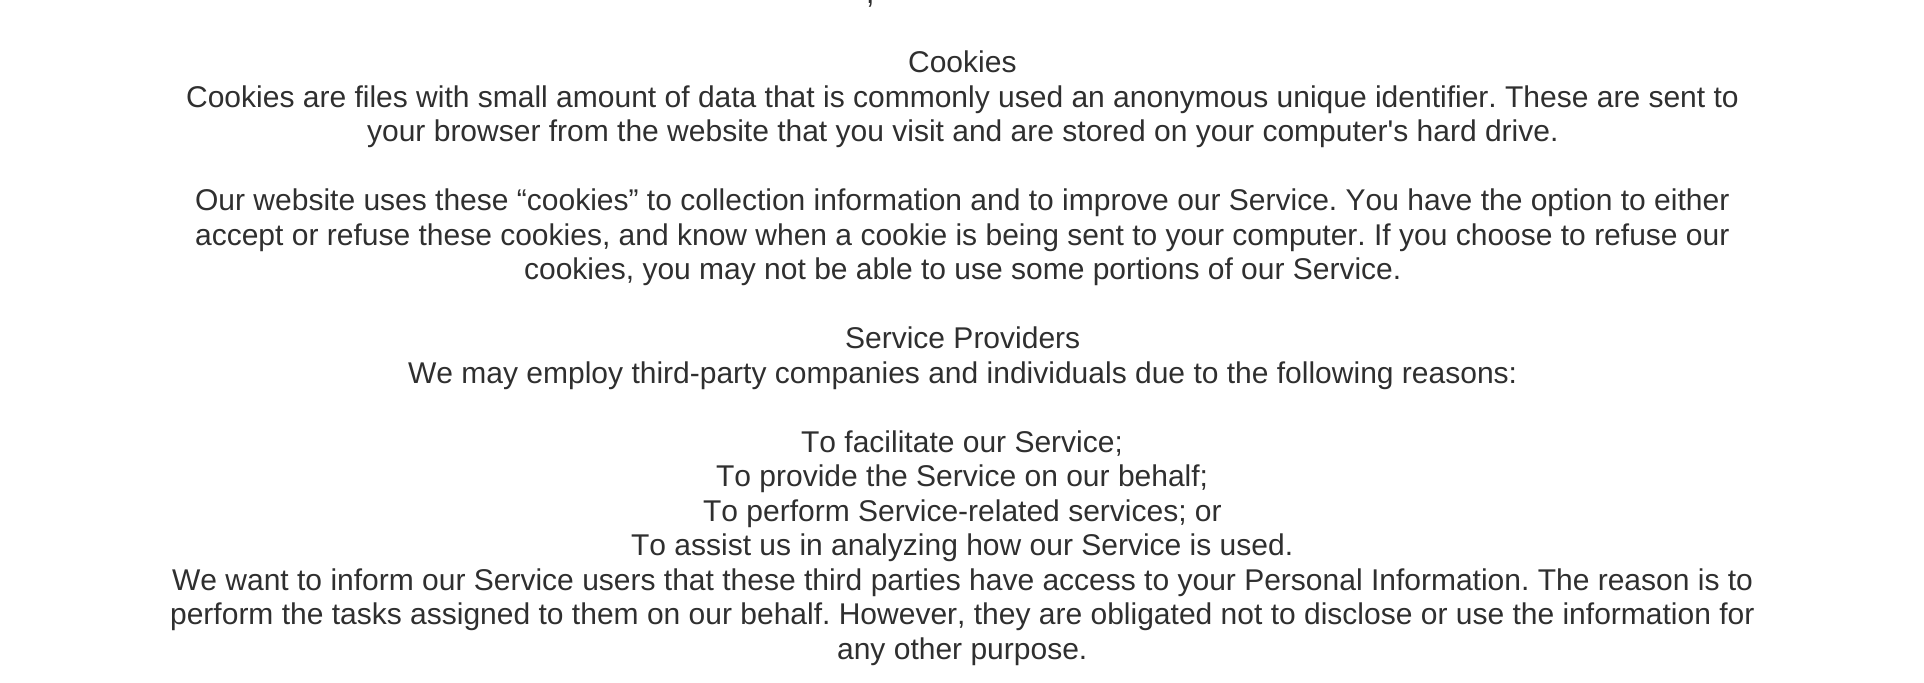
import math
import cairocffi as cairo

surface = cairo.ImageSurface(cairo.FORMAT_RGB24, 1924, 683)
cr = cairo.Context(surface)
options = cairo.FontOptions()
options.set_hint_metrics(cairo.HINT_METRICS_OFF)
options.set_hint_style(cairo.HINT_STYLE_NONE)
cr.set_font_options(options)
cr.set_miter_limit(4)


def use_color(code):
    cr.set_source_rgb(*(v / 255 for v in bytes.fromhex(code[-6:])))


use_color("#ffffff")
cr.paint()
cr.select_font_face("Liberation Sans")
cr.set_font_size(30)
use_color("#2f2f2f")
cr.move_to(866, 3)
cr.show_text(",")
cr.move_to(908, 72)
cr.show_text("Cookies")
cr.move_to(186, 107)
cr.show_text("Cookies are files with small amount of data that is commonly used an anonymous unique identifier. These are sent to")
cr.move_to(367, 141)
cr.show_text("your browser from the website that you visit and are stored on your computer's hard drive.")
cr.move_to(195, 210)
cr.show_text("Our website uses these “cookies” to collection information and to improve our Service. You have the option to either")
cr.move_to(195, 245)
cr.show_text("accept or refuse these cookies, and know when a cookie is being sent to your computer. If you choose to refuse our")
cr.move_to(524, 279)
cr.show_text("cookies, you may not be able to use some portions of our Service.")
cr.move_to(845, 348)
cr.show_text("Service Providers")
cr.move_to(408, 383)
cr.show_text("We may employ third-party companies and individuals due to the following reasons:")
cr.move_to(801, 452)
cr.show_text("To facilitate our Service;")
cr.move_to(716, 486)
cr.show_text("To provide the Service on our behalf;")
cr.move_to(703, 521)
cr.show_text("To perform Service-related services; or")
cr.move_to(631, 555)
cr.show_text("To assist us in analyzing how our Service is used.")
cr.move_to(172, 590)
cr.show_text("We want to inform our Service users that these third parties have access to your Personal Information. The reason is to")
cr.move_to(170, 624)
cr.show_text("perform the tasks assigned to them on our behalf. However, they are obligated not to disclose or use the information for")
cr.move_to(837, 659)
cr.show_text("any other purpose.")
surface.write_to_png("result.png")
